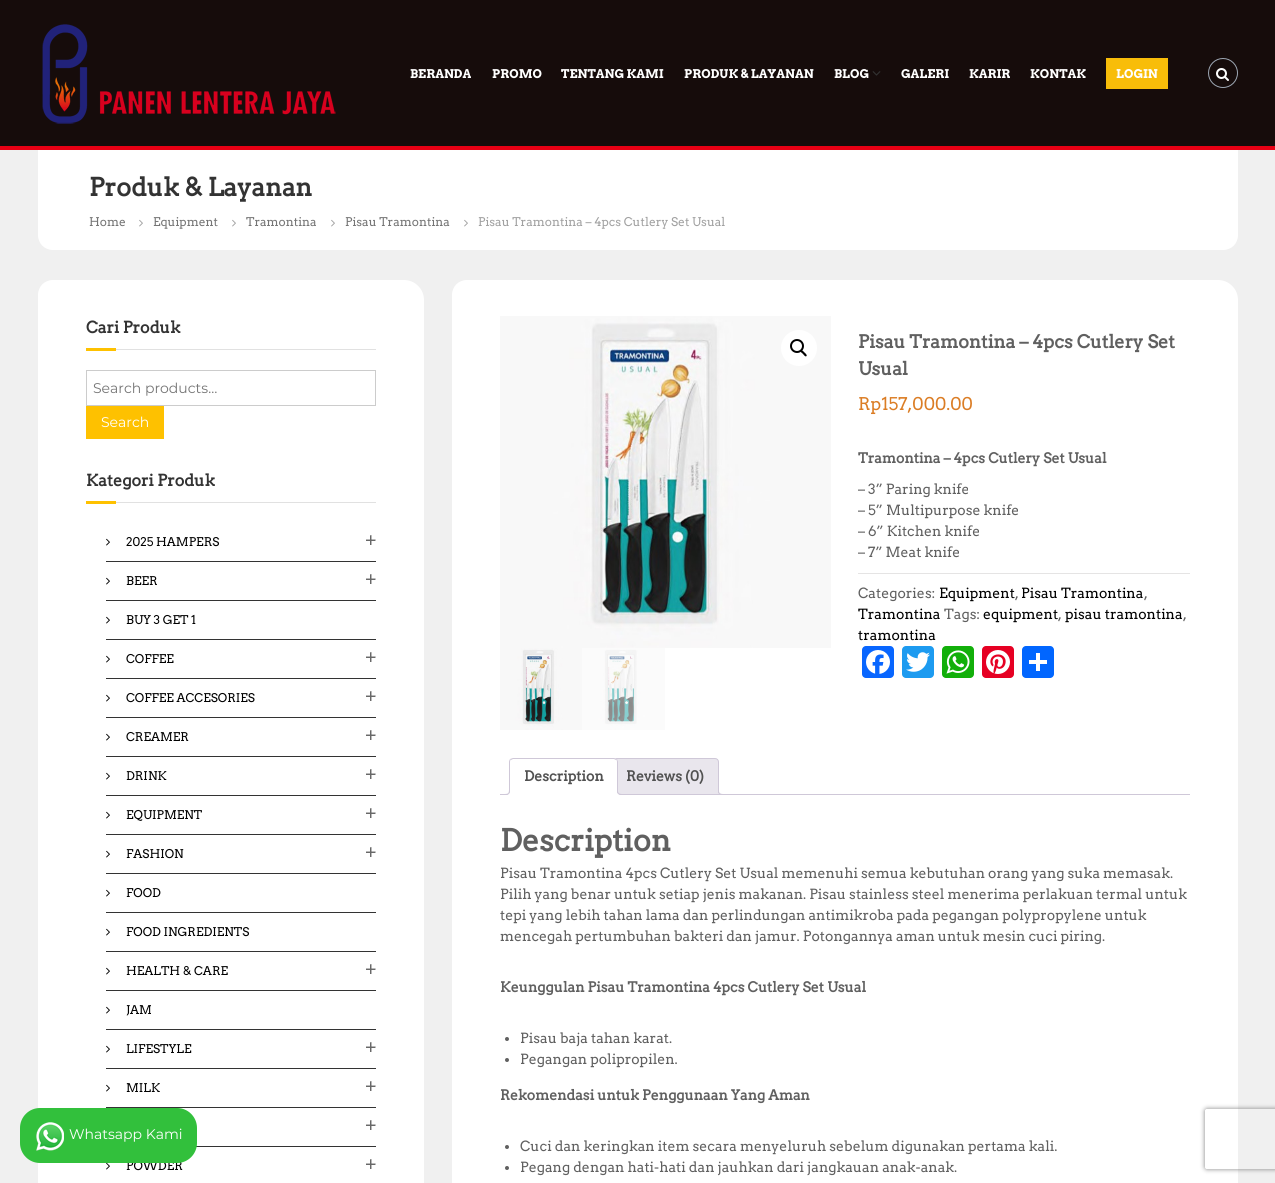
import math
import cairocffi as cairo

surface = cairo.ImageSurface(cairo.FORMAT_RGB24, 1275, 1183)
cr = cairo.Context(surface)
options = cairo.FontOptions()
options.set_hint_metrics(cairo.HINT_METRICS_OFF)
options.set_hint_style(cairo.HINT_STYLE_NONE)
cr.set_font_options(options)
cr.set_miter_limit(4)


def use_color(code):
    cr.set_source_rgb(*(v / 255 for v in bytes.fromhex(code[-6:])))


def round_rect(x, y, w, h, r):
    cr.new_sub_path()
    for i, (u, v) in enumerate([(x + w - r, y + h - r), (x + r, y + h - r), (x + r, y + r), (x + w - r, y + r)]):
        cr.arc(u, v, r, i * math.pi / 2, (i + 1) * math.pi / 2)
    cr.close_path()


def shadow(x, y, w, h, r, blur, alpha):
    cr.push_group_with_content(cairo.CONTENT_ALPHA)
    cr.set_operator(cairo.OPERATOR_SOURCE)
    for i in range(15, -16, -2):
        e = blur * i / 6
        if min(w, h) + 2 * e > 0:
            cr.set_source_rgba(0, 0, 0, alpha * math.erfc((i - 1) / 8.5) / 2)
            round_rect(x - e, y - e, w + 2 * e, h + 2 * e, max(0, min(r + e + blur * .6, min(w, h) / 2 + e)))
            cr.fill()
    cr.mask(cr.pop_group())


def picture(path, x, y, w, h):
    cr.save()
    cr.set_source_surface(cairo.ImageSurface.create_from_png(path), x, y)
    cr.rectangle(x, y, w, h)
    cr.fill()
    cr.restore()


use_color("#f0f0f0")
cr.paint()
use_color("#160c0b")
cr.rectangle(0, 0, 1275, 146)
cr.fill()
use_color("#e70014")
cr.rectangle(0, 146, 1275, 4)
cr.fill()
picture("img1.png", 42, 24, 294, 100)
cr.select_font_face("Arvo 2", cairo.FONT_SLANT_NORMAL, cairo.FONT_WEIGHT_BOLD)
cr.set_font_size(12)
use_color("#ffffff")
cr.move_to(410, 78)
cr.show_text("BERANDA")
cr.move_to(492, 78)
cr.show_text("PROMO")
cr.move_to(561, 78)
cr.show_text("TENTANG KAMI")
cr.move_to(684, 78)
cr.show_text("PRODUK & LAYANAN")
cr.move_to(834, 78)
cr.show_text("BLOG")
picture("img2.png", 872, 71, 9, 5)
cr.move_to(901, 78)
cr.show_text("GALERI")
cr.move_to(969, 78)
cr.show_text("KARIR")
cr.move_to(1030, 78)
cr.show_text("KONTAK")
use_color("#f8bd09")
cr.rectangle(1106, 58, 62, 31)
cr.fill()
use_color("#ffffff")
cr.move_to(1116, 78)
cr.show_text("LOGIN")
cr.new_path()
cr.arc(1223, 73, 14.5, 0, 2 * math.pi)
use_color("#9ca6b2")
cr.set_line_width(1)
cr.stroke()
picture("img3.png", 1216, 68, 13, 13)
use_color("#ffffff")
cr.new_path()
cr.move_to(38, 150)
cr.line_to(1238, 150)
cr.line_to(1238, 235)
cr.curve_to(1238, 243.5, 1231.5, 250, 1223, 250)
cr.line_to(53, 250)
cr.curve_to(44.5, 250, 38, 243.5, 38, 235)
cr.close_path()
cr.fill()
cr.select_font_face("Arvo", cairo.FONT_SLANT_NORMAL, cairo.FONT_WEIGHT_BOLD)
cr.set_font_size(25)
use_color("#333333")
cr.move_to(89, 196)
cr.show_text("Produk & Layanan")
cr.select_font_face("Arvo")
cr.set_font_size(12)
use_color("#757575")
cr.move_to(89, 226)
cr.show_text("Home")
picture("img4.png", 139, 219, 4, 8)
cr.move_to(153, 226)
cr.show_text("Equipment")
picture("img4.png", 232, 219, 4, 8)
cr.move_to(246, 226)
cr.show_text("Tramontina")
picture("img4.png", 331, 219, 4, 8)
cr.move_to(345, 226)
cr.show_text("Pisau Tramontina")
picture("img4.png", 464, 219, 4, 8)
use_color("#a1a1a1")
cr.move_to(478, 226)
cr.show_text("Pisau Tramontina – 4pcs Cutlery Set Usual")
use_color("#ffffff")
cr.new_path()
cr.move_to(53, 280)
cr.line_to(404, 280)
cr.curve_to(415, 280, 424, 289, 424, 300)
cr.line_to(424, 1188)
cr.curve_to(424, 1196.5, 417.5, 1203, 409, 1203)
cr.line_to(53, 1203)
cr.curve_to(44.5, 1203, 38, 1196.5, 38, 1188)
cr.line_to(38, 295)
cr.curve_to(38, 286.5, 44.5, 280, 53, 280)
cr.close_path()
cr.fill()
cr.select_font_face("Arvo", cairo.FONT_SLANT_NORMAL, cairo.FONT_WEIGHT_BOLD)
cr.set_font_size(16)
use_color("#333333")
cr.move_to(86, 333)
cr.show_text("Cari Produk")
use_color("#fec100")
cr.rectangle(86, 348, 30, 3)
cr.fill()
use_color("#e1e1e1")
cr.rectangle(116, 349, 260, 1)
cr.fill()
cr.rectangle(86.5, 370.5, 289, 35)
use_color("#cccccc")
cr.stroke()
cr.select_font_face("Montserrat Thin")
cr.set_font_size(14)
use_color("#757575")
cr.move_to(93, 393)
cr.show_text("Search products…")
use_color("#fec100")
cr.rectangle(86, 406, 78, 33)
cr.fill()
use_color("#ffffff")
cr.move_to(101, 427)
cr.show_text("Search")
cr.select_font_face("Arvo", cairo.FONT_SLANT_NORMAL, cairo.FONT_WEIGHT_BOLD)
cr.set_font_size(16)
use_color("#333333")
cr.move_to(86, 486)
cr.show_text("Kategori Produk")
use_color("#fec100")
cr.rectangle(86, 501, 30, 3)
cr.fill()
use_color("#e1e1e1")
cr.rectangle(116, 502, 260, 1)
cr.fill()
use_color("#333333")
cr.rectangle(106, 561, 270, 1)
cr.fill()
picture("img5.png", 106, 538, 4, 8)
cr.select_font_face("Arvo")
cr.set_font_size(12)
use_color("#000000")
cr.move_to(126, 546)
cr.show_text("2025 HAMPERS")
picture("img6.png", 366, 535, 10, 10)
use_color("#333333")
cr.rectangle(106, 600, 270, 1)
cr.fill()
picture("img5.png", 106, 577, 4, 8)
use_color("#000000")
cr.move_to(126, 585)
cr.show_text("BEER")
picture("img6.png", 366, 574, 10, 10)
use_color("#333333")
cr.rectangle(106, 639, 270, 1)
cr.fill()
picture("img5.png", 106, 616, 4, 8)
use_color("#000000")
cr.move_to(126, 624)
cr.show_text("BUY 3 GET 1")
use_color("#333333")
cr.rectangle(106, 678, 270, 1)
cr.fill()
picture("img5.png", 106, 655, 4, 8)
use_color("#000000")
cr.move_to(126, 663)
cr.show_text("COFFEE")
picture("img6.png", 366, 652, 10, 10)
use_color("#333333")
cr.rectangle(106, 717, 270, 1)
cr.fill()
picture("img5.png", 106, 694, 4, 8)
use_color("#000000")
cr.move_to(126, 702)
cr.show_text("COFFEE ACCESORIES")
picture("img6.png", 366, 691, 10, 10)
use_color("#333333")
cr.rectangle(106, 756, 270, 1)
cr.fill()
picture("img5.png", 106, 733, 4, 8)
use_color("#000000")
cr.move_to(126, 741)
cr.show_text("CREAMER")
picture("img6.png", 366, 730, 10, 10)
use_color("#333333")
cr.rectangle(106, 795, 270, 1)
cr.fill()
picture("img5.png", 106, 772, 4, 8)
use_color("#000000")
cr.move_to(126, 780)
cr.show_text("DRINK")
picture("img6.png", 366, 769, 10, 10)
use_color("#333333")
cr.rectangle(106, 834, 270, 1)
cr.fill()
picture("img5.png", 106, 811, 4, 8)
use_color("#000000")
cr.move_to(126, 819)
cr.show_text("EQUIPMENT")
picture("img6.png", 366, 808, 10, 10)
use_color("#333333")
cr.rectangle(106, 873, 270, 1)
cr.fill()
picture("img5.png", 106, 850, 4, 8)
use_color("#000000")
cr.move_to(126, 858)
cr.show_text("FASHION")
picture("img6.png", 366, 847, 10, 10)
use_color("#333333")
cr.rectangle(106, 912, 270, 1)
cr.fill()
picture("img5.png", 106, 889, 4, 8)
use_color("#000000")
cr.move_to(126, 897)
cr.show_text("FOOD")
use_color("#333333")
cr.rectangle(106, 951, 270, 1)
cr.fill()
picture("img5.png", 106, 928, 4, 8)
use_color("#000000")
cr.move_to(126, 936)
cr.show_text("FOOD INGREDIENTS")
use_color("#333333")
cr.rectangle(106, 990, 270, 1)
cr.fill()
picture("img5.png", 106, 967, 4, 8)
use_color("#000000")
cr.move_to(126, 975)
cr.show_text("HEALTH & CARE")
picture("img6.png", 366, 964, 10, 10)
use_color("#333333")
cr.rectangle(106, 1029, 270, 1)
cr.fill()
picture("img5.png", 106, 1006, 4, 8)
use_color("#000000")
cr.move_to(126, 1014)
cr.show_text("JAM")
use_color("#333333")
cr.rectangle(106, 1068, 270, 1)
cr.fill()
picture("img5.png", 106, 1045, 4, 8)
use_color("#000000")
cr.move_to(126, 1053)
cr.show_text("LIFESTYLE")
picture("img6.png", 366, 1042, 10, 10)
use_color("#333333")
cr.rectangle(106, 1107, 270, 1)
cr.fill()
picture("img5.png", 106, 1084, 4, 8)
use_color("#000000")
cr.move_to(126, 1092)
cr.show_text("MILK")
picture("img6.png", 366, 1081, 10, 10)
use_color("#333333")
cr.rectangle(196, 1146, 180, 1)
cr.fill()
picture("img6.png", 366, 1120, 10, 10)
picture("img7.png", 106, 1163, 4, 7)
use_color("#000000")
cr.move_to(126, 1170)
cr.show_text("POWDER")
picture("img6.png", 366, 1159, 10, 10)
use_color("#ffffff")
cr.new_path()
cr.move_to(467, 280)
cr.line_to(1218, 280)
cr.curve_to(1229, 280, 1238, 289, 1238, 300)
cr.line_to(1238, 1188)
cr.curve_to(1238, 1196.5, 1231.5, 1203, 1223, 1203)
cr.line_to(467, 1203)
cr.curve_to(458.5, 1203, 452, 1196.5, 452, 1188)
cr.line_to(452, 295)
cr.curve_to(452, 286.5, 458.5, 280, 467, 280)
cr.close_path()
cr.fill()
picture("img8.png", 500, 316, 331, 332)
cr.arc(799, 348, 18, 0, 2 * math.pi)
cr.fill()
cr.arc(797, 346, 6, 0, 2 * math.pi)
use_color("#000000")
cr.set_line_width(2)
cr.stroke()
cr.new_path()
cr.move_to(801, 350.5)
cr.curve_to(802, 349.5, 804, 352, 804.5, 352.5)
cr.curve_to(805, 353, 807.5, 355, 806.5, 356)
cr.curve_to(805.5, 357.5, 803.5, 354.5, 803, 354)
cr.curve_to(802.5, 353.5, 799.5, 351.5, 801, 350.5)
cr.close_path()
cr.fill()
picture("img9.png", 500, 648, 82, 82)
picture("img10.png", 582, 648, 83, 82)
cr.select_font_face("Arvo", cairo.FONT_SLANT_NORMAL, cairo.FONT_WEIGHT_BOLD)
cr.set_font_size(18)
use_color("#606060")
cr.move_to(858, 348)
cr.show_text("Pisau Tramontina – 4pcs Cutlery Set")
cr.move_to(858, 375)
cr.show_text("Usual")
cr.select_font_face("Arvo")
cr.set_font_size(17.5)
use_color("#db7d25")
cr.move_to(858, 410)
cr.show_text("Rp157,000.00")
cr.select_font_face("Arvo", cairo.FONT_SLANT_NORMAL, cairo.FONT_WEIGHT_BOLD)
cr.set_font_size(14)
use_color("#606060")
cr.move_to(858, 463)
cr.show_text("Tramontina – 4pcs Cutlery Set Usual")
cr.select_font_face("Arvo")
cr.move_to(858, 494)
cr.show_text("– 3” Paring knife")
cr.move_to(858, 515)
cr.show_text("– 5” Multipurpose knife")
cr.move_to(858, 536)
cr.show_text("– 6” Kitchen knife")
cr.move_to(858, 557)
cr.show_text("– 7” Meat knife")
use_color("#e5e4e4")
cr.rectangle(858, 573, 332, 1)
cr.fill()
use_color("#606060")
cr.move_to(858, 598)
cr.show_text("Categories:")
use_color("#000000")
cr.move_to(939, 598)
cr.show_text("Equipment")
use_color("#606060")
cr.move_to(1015, 598)
cr.show_text(",")
use_color("#000000")
cr.move_to(1021, 598)
cr.show_text("Pisau Tramontina")
use_color("#606060")
cr.move_to(1144, 598)
cr.show_text(",")
use_color("#000000")
cr.move_to(858, 619)
cr.show_text("Tramontina")
use_color("#606060")
cr.move_to(944, 619)
cr.show_text("Tags:")
use_color("#000000")
cr.move_to(983, 619)
cr.show_text("equipment")
use_color("#606060")
cr.move_to(1058, 619)
cr.show_text(",")
use_color("#000000")
cr.move_to(1065, 619)
cr.show_text("pisau tramontina")
use_color("#606060")
cr.move_to(1183, 619)
cr.show_text(",")
use_color("#000000")
cr.move_to(858, 640)
cr.show_text("tramontina")
use_color("#0866ff")
round_rect(862, 646, 32, 32, 4)
cr.fill()
picture("img11.png", 866, 650, 24, 24)
use_color("#1d9bf0")
round_rect(902, 646, 32, 32, 4)
cr.fill()
picture("img12.png", 906, 652, 24, 20)
use_color("#12af0a")
round_rect(942, 646, 32, 32, 4)
cr.fill()
picture("img13.png", 946, 650, 24, 24)
use_color("#e60023")
round_rect(982, 646, 32, 32, 4)
cr.fill()
picture("img14.png", 986, 650, 24, 24)
use_color("#0166ff")
round_rect(1022, 646, 32, 32, 4)
cr.fill()
use_color("#ffffff")
cr.rectangle(1036, 653, 4, 18)
cr.fill()
cr.rectangle(1029, 660, 18, 4)
cr.fill()
use_color("#e9e6ed")
cr.new_path()
cr.move_to(615, 758.5)
cr.line_to(715, 758.5)
cr.curve_to(717, 758.5, 718.5, 760, 718.5, 762)
cr.line_to(718.5, 794.5)
cr.line_to(611.5, 794.5)
cr.line_to(611.5, 762)
cr.curve_to(611.5, 760, 613, 758.5, 615, 758.5)
cr.close_path()
cr.fill_preserve()
use_color("#cfc8d8")
cr.set_line_width(1)
cr.stroke()
cr.save()
cr.rectangle(500, 758, 690, 37)
cr.clip()
use_color("#e9e6ed")
cr.new_path()
cr.move_to(716, 792)
cr.curve_to(716, 795.5, 717.5, 797, 721, 797)
cr.line_to(721, 795)
cr.curve_to(719.5, 794.5, 718.5, 793.5, 718, 792)
cr.close_path()
cr.fill()
cr.restore()
cr.set_fill_rule(cairo.FILL_RULE_EVEN_ODD)
cr.new_path()
cr.move_to(718, 790)
cr.line_to(723, 790)
cr.line_to(723, 795)
cr.curve_to(720.5, 795, 718, 794, 718, 791)
cr.close_path()
cr.move_to(719, 790)
cr.line_to(723, 790)
cr.line_to(723, 794)
cr.curve_to(721, 794, 719, 793.5, 719, 791)
cr.close_path()
cr.fill()
cr.rectangle(500, 794, 690, 1)
cr.fill()
use_color("#ffffff")
cr.new_path()
cr.move_to(513, 758)
cr.line_to(614, 758)
cr.curve_to(616, 758, 618, 760, 618, 762)
cr.line_to(618, 795)
cr.line_to(509, 795)
cr.line_to(509, 762)
cr.curve_to(509, 760, 511, 758, 513, 758)
cr.close_path()
cr.fill()
use_color("#cfc8d8")
cr.set_fill_rule(cairo.FILL_RULE_WINDING)
cr.new_path()
cr.move_to(513, 758)
cr.line_to(510, 759)
cr.line_to(511, 760)
cr.line_to(513, 759)
cr.line_to(614, 759)
cr.line_to(616, 760)
cr.line_to(617, 759)
cr.line_to(614, 758)
cr.close_path()
cr.fill()
cr.new_path()
cr.move_to(618, 795)
cr.line_to(618, 762)
cr.curve_to(618, 761, 617.5, 760, 617, 759)
cr.line_to(616, 760)
cr.curve_to(617, 760, 617, 761, 617, 762)
cr.line_to(617, 794)
cr.close_path()
cr.fill()
use_color("#ffffff")
cr.new_path()
cr.move_to(618, 795)
cr.line_to(617, 794)
cr.line_to(510, 794)
cr.line_to(509, 795)
cr.close_path()
cr.fill()
use_color("#cfc8d8")
cr.new_path()
cr.move_to(509, 795)
cr.line_to(510, 794)
cr.line_to(510, 762)
cr.curve_to(510, 761, 510, 760, 511, 760)
cr.line_to(510, 759)
cr.curve_to(509.5, 760, 509, 761, 509, 762)
cr.close_path()
cr.fill()
cr.select_font_face("Arvo", cairo.FONT_SLANT_NORMAL, cairo.FONT_WEIGHT_BOLD)
use_color("#515151")
cr.move_to(524, 781)
cr.show_text("Description")
cr.save()
cr.rectangle(500, 758, 690, 37)
cr.clip()
use_color("#ffffff")
cr.new_path()
cr.move_to(507, 795)
cr.line_to(507, 797)
cr.curve_to(510.5, 797, 512, 795.5, 512, 792)
cr.line_to(510, 792)
cr.curve_to(509.5, 793.5, 508.5, 794.5, 507, 795)
cr.close_path()
cr.fill()
cr.restore()
use_color("#cfc8d8")
cr.set_fill_rule(cairo.FILL_RULE_EVEN_ODD)
cr.new_path()
cr.move_to(505, 790)
cr.line_to(510, 790)
cr.curve_to(510, 793.5, 508.5, 795, 505, 795)
cr.close_path()
cr.move_to(505, 790)
cr.line_to(509, 790)
cr.curve_to(509, 793, 508, 794, 505, 794)
cr.close_path()
cr.fill()
cr.save()
cr.set_fill_rule(cairo.FILL_RULE_WINDING)
cr.rectangle(500, 758, 690, 37)
cr.clip()
use_color("#ffffff")
cr.new_path()
cr.move_to(615, 792)
cr.curve_to(615, 795.5, 616.5, 797, 620, 797)
cr.line_to(620, 795)
cr.curve_to(618.5, 794.5, 617.5, 793.5, 617, 792)
cr.close_path()
cr.fill()
cr.restore()
cr.new_path()
cr.move_to(617, 790)
cr.line_to(622, 790)
cr.line_to(622, 795)
cr.curve_to(619.5, 795, 617, 794, 617, 791)
cr.close_path()
cr.move_to(618, 790)
cr.line_to(622, 790)
cr.line_to(622, 794)
cr.curve_to(620, 794, 618, 793.5, 618, 791)
cr.close_path()
cr.fill()
use_color("#515151")
cr.move_to(626, 781)
cr.show_text("Reviews (0)")
cr.set_font_size(30)
use_color("#606060")
cr.move_to(500, 851)
cr.show_text("Description")
cr.select_font_face("Arvo")
cr.set_font_size(14)
cr.move_to(500, 878)
cr.show_text("Pisau Tramontina 4pcs Cutlery Set Usual memenuhi semua kebutuhan orang yang suka memasak.")
cr.move_to(500, 899)
cr.show_text("Pilih yang benar untuk setiap jenis makanan. Pisau stainless steel menerima perlakuan termal untuk")
cr.move_to(500, 920)
cr.show_text("tepi yang lebih tahan lama dan perlindungan antimikroba pada pegangan polypropylene untuk")
cr.move_to(500, 941)
cr.show_text("mencegah pertumbuhan bakteri dan jamur. Potongannya aman untuk mesin cuci piring.")
cr.select_font_face("Arvo", cairo.FONT_SLANT_NORMAL, cairo.FONT_WEIGHT_BOLD)
cr.move_to(500, 992)
cr.show_text("Keunggulan Pisau Tramontina 4pcs Cutlery Set Usual")
cr.new_path()
cr.arc(507, 1039, 2, 0, 2 * math.pi)
cr.fill()
cr.select_font_face("Arvo")
cr.move_to(520, 1043)
cr.show_text("Pisau baja tahan karat.")
cr.new_path()
cr.arc(507, 1060, 2, 0, 2 * math.pi)
cr.fill()
cr.move_to(520, 1064)
cr.show_text("Pegangan polipropilen.")
cr.select_font_face("Arvo", cairo.FONT_SLANT_NORMAL, cairo.FONT_WEIGHT_BOLD)
cr.move_to(500, 1100)
cr.show_text("Rekomendasi untuk Penggunaan Yang Aman")
cr.new_path()
cr.arc(507, 1147, 2, 0, 2 * math.pi)
cr.fill()
cr.select_font_face("Arvo")
cr.move_to(520, 1151)
cr.show_text("Cuci dan keringkan item secara menyeluruh sebelum digunakan pertama kali.")
cr.new_path()
cr.arc(507, 1168, 2, 0, 2 * math.pi)
cr.fill()
cr.move_to(520, 1172)
cr.show_text("Pegang dengan hati-hati dan jauhkan dari jangkauan anak-anak.")
cr.save()
cr.new_path()
cr.move_to(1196, 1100)
cr.line_to(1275, 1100)
cr.line_to(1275, 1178)
cr.line_to(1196, 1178)
cr.close_path()
cr.move_to(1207, 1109)
cr.line_to(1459, 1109)
cr.curve_to(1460, 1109, 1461, 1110, 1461, 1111)
cr.line_to(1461, 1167)
cr.curve_to(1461, 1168, 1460, 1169, 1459, 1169)
cr.line_to(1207, 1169)
cr.curve_to(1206, 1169, 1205, 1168, 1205, 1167)
cr.line_to(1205, 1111)
cr.curve_to(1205, 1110, 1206, 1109, 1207, 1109)
cr.close_path()
cr.clip()
use_color("#808080")
shadow(1205, 1109, 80, 60, 2, 2.5, 1)
cr.restore()
use_color("#32c03c")
round_rect(20, 1108, 177, 55, 20)
cr.fill()
picture("img15.png", 36, 1122, 28, 29)
cr.select_font_face("Montserrat Thin")
use_color("#ffffff")
cr.move_to(69, 1139)
cr.show_text("Whatsapp Kami")
surface.write_to_png("result.png")
